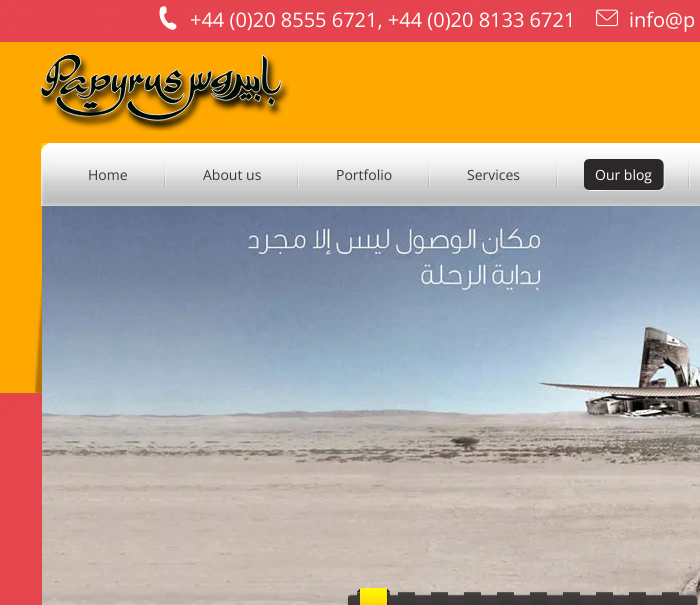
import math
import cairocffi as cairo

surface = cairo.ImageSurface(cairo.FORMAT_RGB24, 700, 605)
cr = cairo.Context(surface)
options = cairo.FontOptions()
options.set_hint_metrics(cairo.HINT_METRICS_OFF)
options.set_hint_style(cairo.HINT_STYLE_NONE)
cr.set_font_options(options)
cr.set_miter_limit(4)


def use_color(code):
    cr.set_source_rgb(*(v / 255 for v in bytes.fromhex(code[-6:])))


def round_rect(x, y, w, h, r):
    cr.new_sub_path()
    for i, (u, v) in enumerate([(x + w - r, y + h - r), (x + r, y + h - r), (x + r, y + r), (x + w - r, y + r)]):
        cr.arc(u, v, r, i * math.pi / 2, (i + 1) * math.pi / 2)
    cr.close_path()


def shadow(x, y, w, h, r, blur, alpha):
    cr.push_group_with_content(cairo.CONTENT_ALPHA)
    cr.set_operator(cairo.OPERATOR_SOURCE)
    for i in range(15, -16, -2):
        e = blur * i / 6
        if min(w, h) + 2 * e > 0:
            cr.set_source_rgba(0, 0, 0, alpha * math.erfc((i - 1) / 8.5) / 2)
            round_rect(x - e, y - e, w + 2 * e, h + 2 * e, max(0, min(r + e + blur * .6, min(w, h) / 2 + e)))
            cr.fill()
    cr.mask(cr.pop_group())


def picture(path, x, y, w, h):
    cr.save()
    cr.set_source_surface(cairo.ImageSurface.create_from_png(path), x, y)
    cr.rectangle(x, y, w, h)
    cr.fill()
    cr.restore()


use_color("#ffffff")
cr.paint()
picture("img1.png", 0, 404, 42, 201)
picture("img2.png", 0, 0, 700, 33)
picture("img3.png", 0, 42, 700, 362)
use_color("#e5444f")
cr.rectangle(0, 33, 700, 9)
cr.fill()
picture("img4.png", 159, 6, 18, 24)
cr.select_font_face("Open Sans")
cr.set_font_size(20)
use_color("#ffffff")
cr.move_to(190, 27)
cr.show_text("+44 (0)20 8555 6721, +44 (0)20 8133 6721")
picture("img5.png", 596, 9, 22, 18)
cr.move_to(629, 27)
cr.show_text("info@p")
picture("img6.png", 41, 54, 249, 77)
picture("img7.png", 41, 143, 10, 63)
picture("img8.png", 51, 143, 649, 63)
picture("img9.png", 164, 161, 2, 29)
cr.set_font_size(14)
use_color("#393939")
cr.move_to(88, 180)
cr.show_text("Home")
picture("img9.png", 297, 161, 2, 29)
cr.move_to(203, 180)
cr.show_text("About us")
picture("img9.png", 428, 161, 2, 29)
cr.move_to(336, 180)
cr.show_text("Portfolio")
picture("img9.png", 556, 161, 2, 29)
cr.move_to(467, 180)
cr.show_text("Services")
picture("img9.png", 688, 161, 2, 29)
picture("img10.png", 583, 159, 7, 32)
picture("img11.png", 590, 159, 75, 32)
use_color("#ffffff")
cr.move_to(595, 180)
cr.show_text("Our blog")
picture("img12.png", 33, 206, 9, 195)
picture("img13.png", 42, 206, 658, 399)
use_color("#000000")
shadow(349, 596, 348, 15, 3, 1, 1)
picture("img14.png", 348, 595, 348, 10)
picture("img15.png", 357, 588, 33, 17)
picture("img16.png", 398, 592, 17, 13)
picture("img16.png", 431, 592, 17, 13)
picture("img16.png", 464, 592, 17, 13)
picture("img16.png", 497, 592, 17, 13)
picture("img16.png", 530, 592, 17, 13)
picture("img16.png", 563, 592, 17, 13)
picture("img16.png", 596, 592, 17, 13)
picture("img16.png", 629, 592, 17, 13)
picture("img16.png", 662, 592, 17, 13)
surface.write_to_png("result.png")
